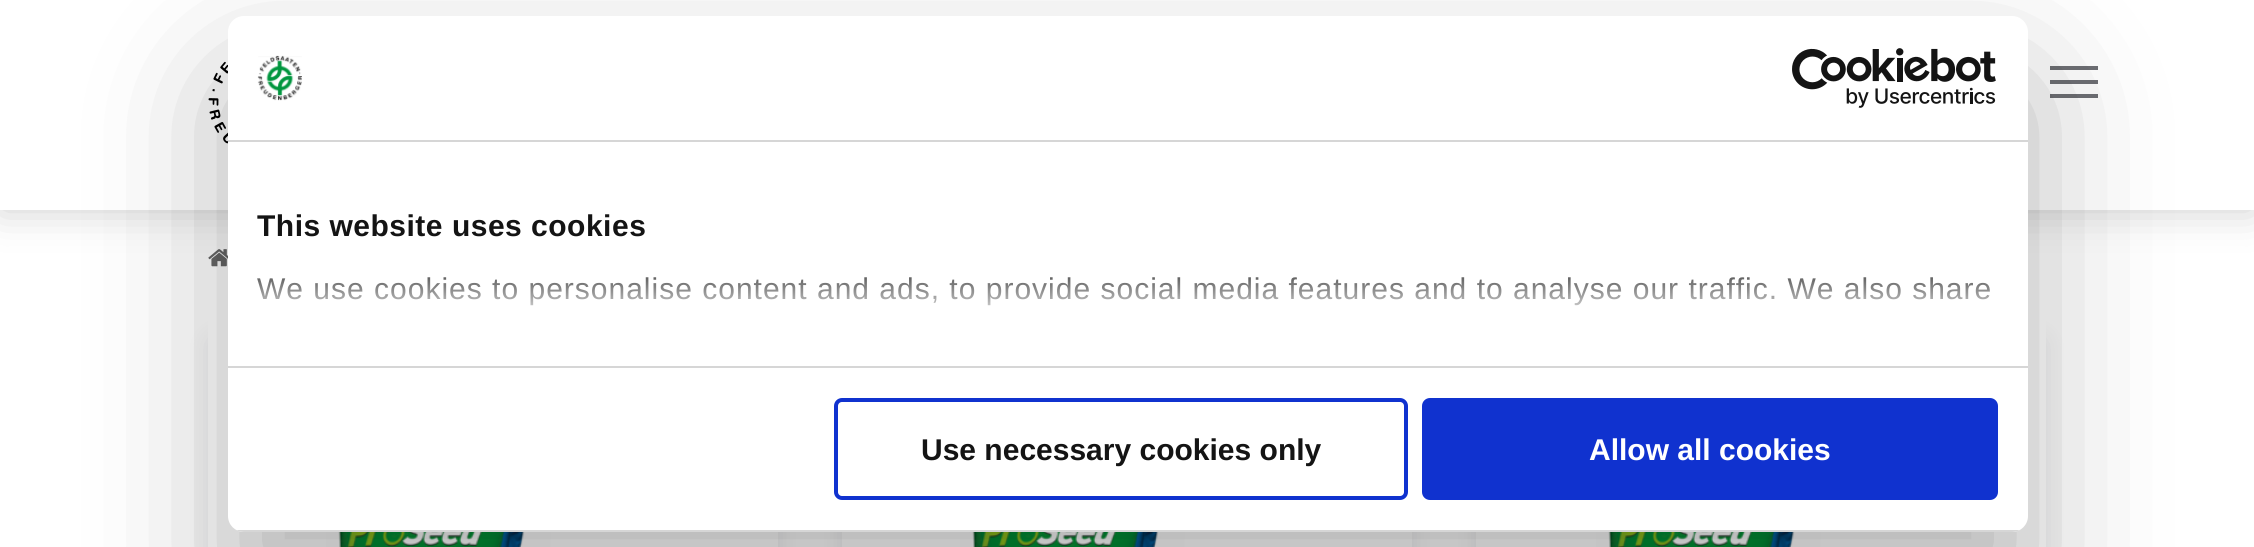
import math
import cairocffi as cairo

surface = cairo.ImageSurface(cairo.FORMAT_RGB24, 2254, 547)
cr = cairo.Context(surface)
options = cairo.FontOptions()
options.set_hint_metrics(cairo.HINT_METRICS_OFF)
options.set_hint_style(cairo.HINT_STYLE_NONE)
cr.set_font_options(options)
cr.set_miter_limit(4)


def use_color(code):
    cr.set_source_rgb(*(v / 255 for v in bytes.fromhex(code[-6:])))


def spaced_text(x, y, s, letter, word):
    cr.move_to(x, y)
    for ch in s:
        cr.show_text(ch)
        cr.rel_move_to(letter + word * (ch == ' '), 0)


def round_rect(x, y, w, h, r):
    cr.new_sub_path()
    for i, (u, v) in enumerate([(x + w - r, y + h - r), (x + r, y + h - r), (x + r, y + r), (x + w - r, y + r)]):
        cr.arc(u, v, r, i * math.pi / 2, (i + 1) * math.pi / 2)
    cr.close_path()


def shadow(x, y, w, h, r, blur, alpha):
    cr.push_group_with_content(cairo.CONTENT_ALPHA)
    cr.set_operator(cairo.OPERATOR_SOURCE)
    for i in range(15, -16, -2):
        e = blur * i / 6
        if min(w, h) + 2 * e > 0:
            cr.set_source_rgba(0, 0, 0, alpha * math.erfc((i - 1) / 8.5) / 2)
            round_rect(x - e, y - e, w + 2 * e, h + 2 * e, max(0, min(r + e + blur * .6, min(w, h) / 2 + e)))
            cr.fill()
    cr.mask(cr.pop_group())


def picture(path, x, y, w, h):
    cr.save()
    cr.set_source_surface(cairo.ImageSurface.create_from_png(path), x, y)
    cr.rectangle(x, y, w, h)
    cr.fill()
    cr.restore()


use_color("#ffffff")
cr.paint()
picture("img4.png", 208, 249, 20, 18)
use_color("#000000")
shadow(0, 0, 2254, 210, 0, 20, 0.2)
use_color("#ffffff")
cr.rectangle(0, 0, 2254, 210)
cr.fill()
picture("img1.png", 208, 61, 20, 83)
use_color("#6e6f74")
cr.rectangle(2050, 66, 48, 4)
cr.fill()
cr.rectangle(2050, 80, 48, 4)
cr.fill()
cr.rectangle(2050, 94, 48, 4)
cr.fill()
cr.save()
cr.set_fill_rule(cairo.FILL_RULE_EVEN_ODD)
cr.new_path()
cr.move_to(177, 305)
cr.line_to(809, 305)
cr.line_to(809, 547)
cr.line_to(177, 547)
cr.close_path()
cr.move_to(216, 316)
cr.line_to(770, 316)
cr.curve_to(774.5, 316, 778, 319.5, 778, 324)
cr.line_to(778, 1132)
cr.curve_to(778, 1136.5, 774.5, 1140, 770, 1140)
cr.line_to(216, 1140)
cr.curve_to(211.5, 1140, 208, 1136.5, 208, 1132)
cr.line_to(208, 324)
cr.curve_to(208, 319.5, 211.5, 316, 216, 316)
cr.close_path()
cr.clip()
use_color("#22233a")
shadow(208, 336, 570, 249, 8, 10, 0.1)
cr.restore()
picture("img5.png", 326, 532, 368, 15)
cr.save()
cr.set_fill_rule(cairo.FILL_RULE_EVEN_ODD)
cr.new_path()
cr.move_to(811, 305)
cr.line_to(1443, 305)
cr.line_to(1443, 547)
cr.line_to(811, 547)
cr.close_path()
cr.move_to(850, 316)
cr.line_to(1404, 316)
cr.curve_to(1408.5, 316, 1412, 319.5, 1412, 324)
cr.line_to(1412, 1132)
cr.curve_to(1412, 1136.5, 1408.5, 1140, 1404, 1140)
cr.line_to(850, 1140)
cr.curve_to(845.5, 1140, 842, 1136.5, 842, 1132)
cr.line_to(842, 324)
cr.curve_to(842, 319.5, 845.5, 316, 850, 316)
cr.close_path()
cr.clip()
use_color("#22233a")
shadow(842, 336, 570, 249, 8, 10, 0.1)
cr.restore()
picture("img6.png", 960, 532, 368, 15)
cr.save()
cr.set_fill_rule(cairo.FILL_RULE_EVEN_ODD)
cr.new_path()
cr.move_to(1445, 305)
cr.line_to(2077, 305)
cr.line_to(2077, 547)
cr.line_to(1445, 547)
cr.close_path()
cr.move_to(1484, 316)
cr.line_to(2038, 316)
cr.curve_to(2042.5, 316, 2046, 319.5, 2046, 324)
cr.line_to(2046, 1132)
cr.curve_to(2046, 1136.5, 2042.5, 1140, 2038, 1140)
cr.line_to(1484, 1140)
cr.curve_to(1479.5, 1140, 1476, 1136.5, 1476, 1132)
cr.line_to(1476, 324)
cr.curve_to(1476, 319.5, 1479.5, 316, 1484, 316)
cr.close_path()
cr.clip()
use_color("#22233a")
shadow(1476, 336, 570, 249, 8, 10, 0.1)
cr.restore()
picture("img5.png", 1596, 532, 368, 15)
use_color("#000000")
shadow(228, 80, 1800, 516, 16, 68, 0.3)
use_color("#ffffff")
round_rect(228, 16, 1800, 516, 16)
cr.fill()
use_color("#d6d6d6")
cr.rectangle(228, 140, 1800, 2)
cr.fill()
picture("img2.png", 257, 55, 45, 46)
picture("img3.png", 1792, 48, 204, 60)
cr.rectangle(228, 366, 1800, 2)
cr.fill()
cr.select_font_face("Liberation Sans", cairo.FONT_SLANT_NORMAL, cairo.FONT_WEIGHT_BOLD)
cr.set_font_size(30)
use_color("#141414")
spaced_text(257, 236, "This website uses cookies", 0.5, 0)
cr.select_font_face("Liberation Sans")
spaced_text(257, 299, "We use cookies to personalise content and ads, to provide social media features and to analyse our traffic. We also share", 1, 0)
gradient = cairo.LinearGradient(1115, 366, 1115, 254)
gradient.add_color_stop_rgba(0, 1, 1, 1, 1)
gradient.add_color_stop_rgba(0.5, 1, 1, 1, 0.8)
gradient.add_color_stop_rgba(1, 1, 1, 1, 0)
cr.set_source(gradient)
cr.rectangle(257, 277, 1733, 29)
cr.fill()
cr.save()
round_rect(228, 16, 1800, 516, 16)
cr.clip()
use_color("#d6d6d6")
cr.rectangle(228, 530, 1800, 2)
cr.fill()
cr.restore()
round_rect(836, 400, 570, 98, 6)
use_color("#1032cf")
cr.set_line_width(4)
cr.stroke()
cr.select_font_face("Liberation Sans", cairo.FONT_SLANT_NORMAL, cairo.FONT_WEIGHT_BOLD)
use_color("#141414")
cr.move_to(921, 460)
cr.show_text("Use necessary cookies only")
use_color("#1032cf")
round_rect(1424, 400, 572, 98, 6)
cr.fill_preserve()
cr.stroke()
use_color("#ffffff")
cr.move_to(1589, 460)
cr.show_text("Allow all cookies")
surface.write_to_png("result.png")
